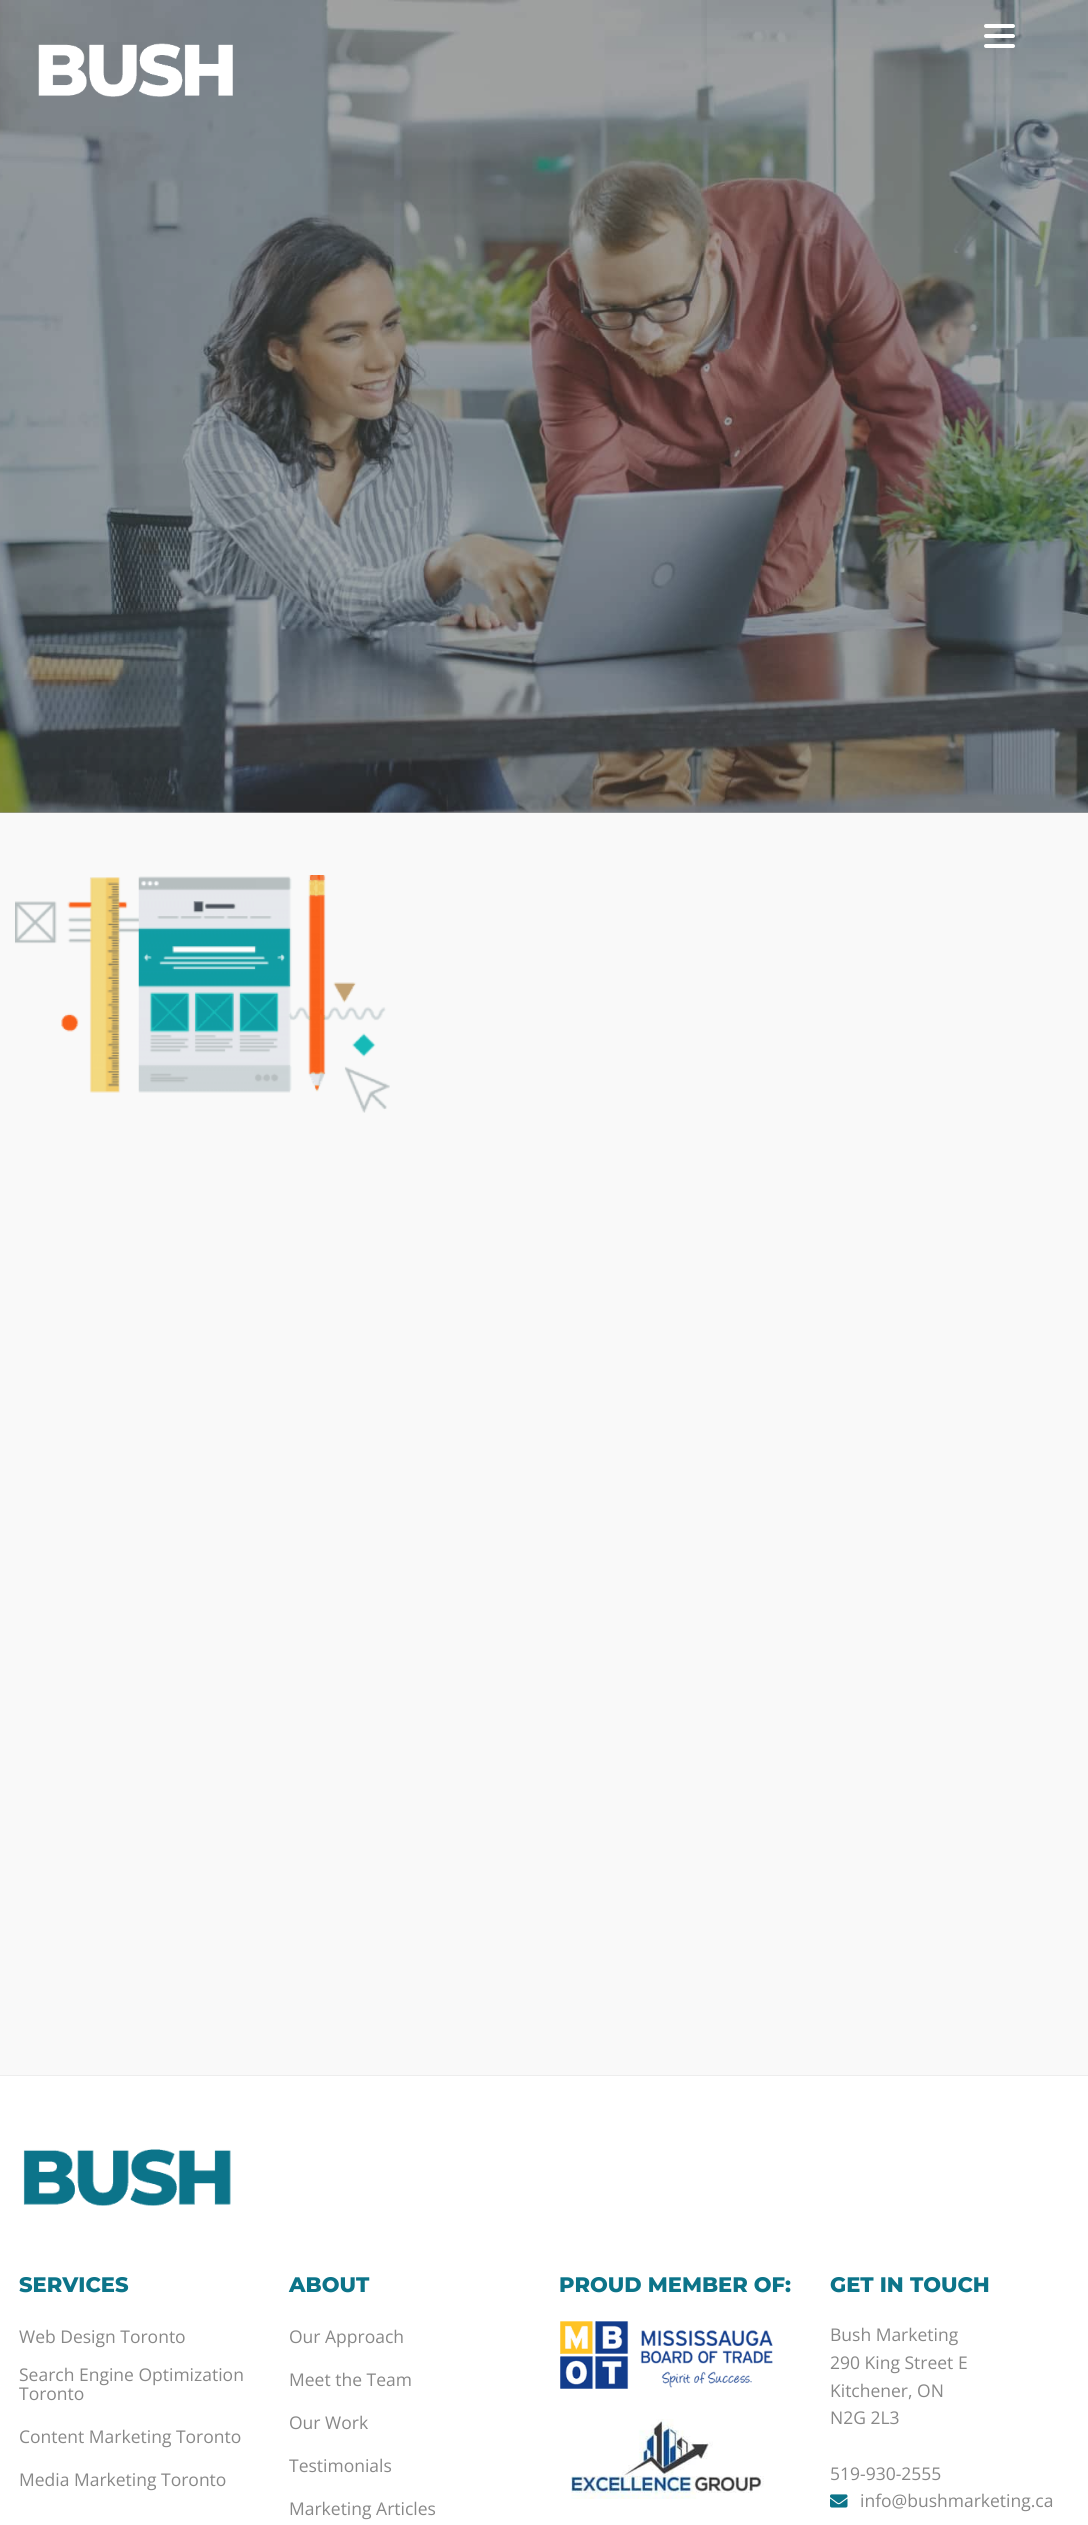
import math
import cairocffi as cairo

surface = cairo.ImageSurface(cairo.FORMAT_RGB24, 1088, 2525)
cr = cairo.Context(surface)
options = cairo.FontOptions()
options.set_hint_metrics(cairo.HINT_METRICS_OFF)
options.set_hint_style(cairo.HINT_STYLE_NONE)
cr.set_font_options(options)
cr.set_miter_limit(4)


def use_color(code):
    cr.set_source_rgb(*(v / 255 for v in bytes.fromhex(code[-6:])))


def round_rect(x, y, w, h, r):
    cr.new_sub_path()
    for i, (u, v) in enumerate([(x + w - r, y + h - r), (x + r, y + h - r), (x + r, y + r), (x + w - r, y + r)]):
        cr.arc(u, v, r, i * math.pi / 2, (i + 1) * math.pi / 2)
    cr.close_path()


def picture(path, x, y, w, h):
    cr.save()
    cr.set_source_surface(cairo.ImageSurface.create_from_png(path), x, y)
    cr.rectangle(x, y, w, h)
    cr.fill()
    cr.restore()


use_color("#ffffff")
cr.paint()
use_color("#f9f9f9")
cr.rectangle(0, 813, 1088, 1262)
cr.fill()
use_color("#a5a5a5")
cr.rectangle(0, 812, 1088, 1)
cr.fill()
picture("img1.png", 0, 0, 1088, 813)
picture("img2.png", 15, 875, 375, 238)
picture("img3.png", 38, 43, 195, 54)
use_color("#ffffff")
round_rect(984, 44, 31, 4, 2)
cr.fill()
round_rect(984, 24, 31, 4, 2)
cr.fill()
round_rect(984, 34, 31, 4, 2)
cr.fill()
use_color("#ededed")
cr.rectangle(0, 2075, 1088, 1)
cr.fill()
picture("img4.png", 23, 2149, 208, 57)
cr.select_font_face("Montserrat ExtraBold")
cr.set_font_size(21)
use_color("#0c7489")
cr.move_to(19, 2292)
cr.show_text("SERVICES")
cr.select_font_face("Open Sans")
cr.set_font_size(17.5)
use_color("#888888")
cr.move_to(19, 2343)
cr.show_text("Web Design Toronto")
cr.move_to(19, 2381)
cr.show_text("Search Engine Optimization")
cr.move_to(19, 2400)
cr.show_text("Toronto")
cr.move_to(19, 2443)
cr.show_text("Content Marketing Toronto")
cr.move_to(19, 2486)
cr.show_text("Media Marketing Toronto")
cr.select_font_face("Montserrat ExtraBold")
cr.set_font_size(21)
use_color("#0c7489")
cr.move_to(289, 2292)
cr.show_text("ABOUT")
cr.select_font_face("Open Sans")
cr.set_font_size(17.5)
use_color("#888888")
cr.move_to(289, 2343)
cr.show_text("Our Approach")
cr.move_to(289, 2386)
cr.show_text("Meet the Team")
cr.move_to(289, 2429)
cr.show_text("Our Work")
cr.move_to(289, 2472)
cr.show_text("Testimonials")
cr.move_to(289, 2515)
cr.show_text("Marketing Articles")
cr.select_font_face("Montserrat ExtraBold")
cr.set_font_size(21)
use_color("#0c7489")
cr.move_to(559, 2292)
cr.show_text("PROUD MEMBER OF:")
picture("img5.png", 560, 2321, 213, 68)
picture("img6.png", 571, 2419, 193, 80)
cr.move_to(830, 2292)
cr.show_text("GET IN TOUCH")
cr.select_font_face("Open Sans")
cr.set_font_size(17.5)
use_color("#888888")
cr.move_to(830, 2341)
cr.show_text("Bush Marketing")
cr.move_to(830, 2369)
cr.show_text("290 King Street E")
cr.move_to(830, 2397)
cr.show_text("Kitchener, ON")
cr.move_to(830, 2424)
cr.show_text("N2G 2L3")
cr.move_to(830, 2480)
cr.show_text("519-930-2555")
picture("img7.png", 830, 2494, 18, 14)
cr.move_to(860, 2507)
cr.show_text("info@bushmarketing.ca")
surface.write_to_png("result.png")
